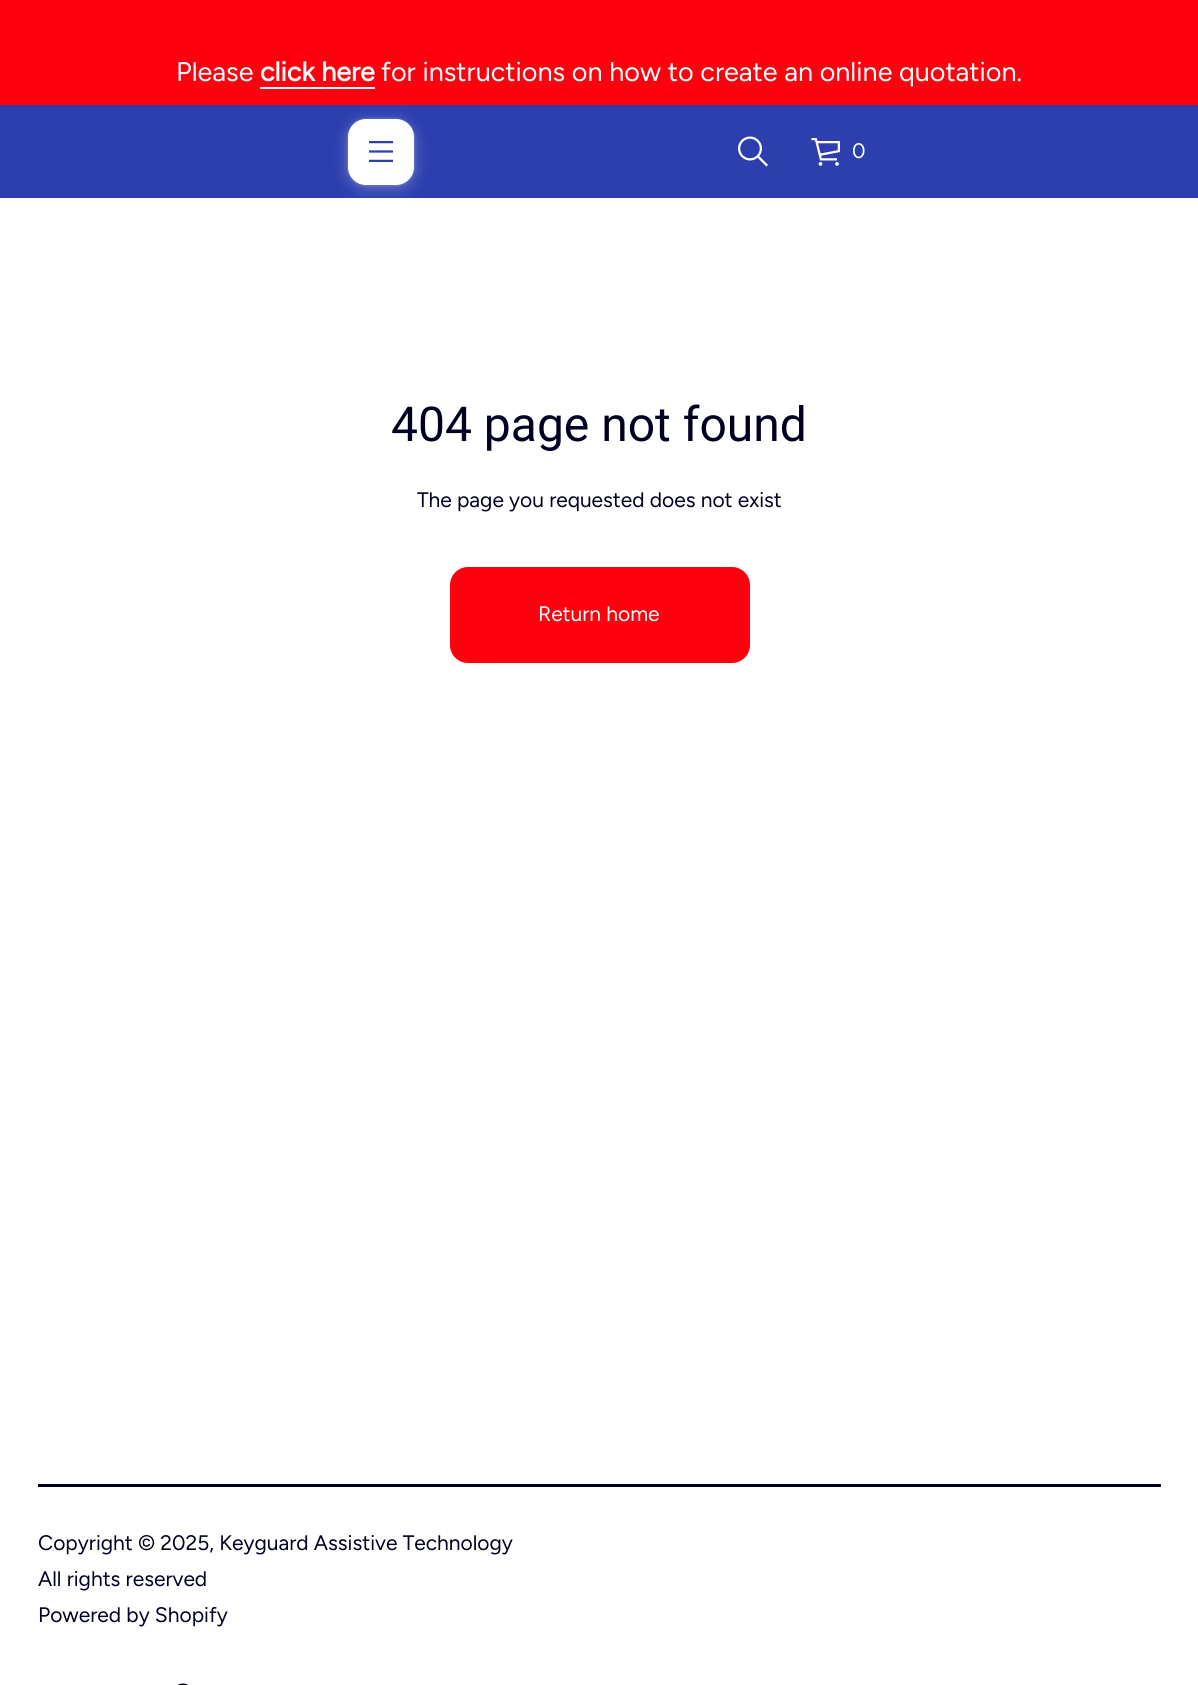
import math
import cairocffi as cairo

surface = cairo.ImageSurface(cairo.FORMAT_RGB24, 1198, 1685)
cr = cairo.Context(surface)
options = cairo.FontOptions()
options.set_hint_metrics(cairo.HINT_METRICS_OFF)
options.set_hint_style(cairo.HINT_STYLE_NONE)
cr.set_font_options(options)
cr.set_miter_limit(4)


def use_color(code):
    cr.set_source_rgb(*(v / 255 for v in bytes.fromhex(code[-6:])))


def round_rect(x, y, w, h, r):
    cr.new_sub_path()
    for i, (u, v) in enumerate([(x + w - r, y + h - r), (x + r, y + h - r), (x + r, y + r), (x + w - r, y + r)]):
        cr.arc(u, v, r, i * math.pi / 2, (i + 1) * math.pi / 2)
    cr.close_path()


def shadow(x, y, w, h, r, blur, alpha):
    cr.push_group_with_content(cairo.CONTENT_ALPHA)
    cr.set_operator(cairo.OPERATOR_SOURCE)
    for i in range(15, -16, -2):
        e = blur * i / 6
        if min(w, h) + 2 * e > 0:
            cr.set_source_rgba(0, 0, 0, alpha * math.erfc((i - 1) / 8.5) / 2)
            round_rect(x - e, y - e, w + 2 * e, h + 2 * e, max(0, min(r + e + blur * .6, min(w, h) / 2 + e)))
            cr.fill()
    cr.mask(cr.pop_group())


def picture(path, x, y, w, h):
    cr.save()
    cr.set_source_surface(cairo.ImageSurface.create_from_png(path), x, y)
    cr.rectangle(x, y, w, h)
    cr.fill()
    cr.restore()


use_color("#ffffff")
cr.paint()
use_color("#ff000e")
cr.rectangle(0, 0, 1198, 105)
cr.fill()
cr.select_font_face("Figtree")
cr.set_font_size(27)
use_color("#ffffff")
cr.move_to(176, 81)
cr.show_text("Please")
cr.select_font_face("Figtree", cairo.FONT_SLANT_NORMAL, cairo.FONT_WEIGHT_BOLD)
cr.move_to(260, 81)
cr.show_text("click here")
cr.rectangle(260, 87, 115, 2)
cr.fill()
cr.select_font_face("Figtree")
cr.move_to(381, 81)
cr.show_text("for instructions on how to create an online quotation.")
use_color("#2d3faf")
cr.rectangle(0, 105, 1198, 93)
cr.fill()
use_color("#ffffff")
shadow(348, 122, 66, 66, 18, 7.5, 0.15)
shadow(348, 119, 66, 66, 18, 1.5, 0.15)
shadow(348, 122, 66, 66, 18, 7.5, 0.15)
shadow(348, 119, 66, 66, 18, 1.5, 0.15)
use_color("#ffffff")
round_rect(348, 119, 66, 66, 18)
cr.fill()
picture("img1.png", 369, 141, 24, 21)
picture("img2.png", 738, 136, 30, 31)
picture("img3.png", 811, 138, 29, 28)
cr.set_font_size(21)
cr.move_to(852, 158)
cr.show_text("0")
cr.select_font_face("Roboto")
cr.set_font_size(48)
use_color("#000022")
cr.move_to(391, 441)
cr.show_text("404 page not found")
cr.select_font_face("Figtree")
cr.set_font_size(21)
cr.move_to(417, 507)
cr.show_text("The page you requested does not exist")
use_color("#ff000e")
round_rect(450, 567, 300, 96, 18)
cr.fill()
use_color("#ffffff")
cr.move_to(538, 621)
cr.show_text("Return home")
use_color("#000022")
cr.rectangle(38, 1484, 1123, 3)
cr.fill()
cr.move_to(38, 1550)
cr.show_text("Copyright © 2025, Keyguard Assistive Technology")
cr.move_to(38, 1586)
cr.show_text("All rights reserved")
cr.move_to(38, 1622)
cr.show_text("Powered by Shopify")
picture("img4.png", 178, 1683, 10, 2)
surface.write_to_png("result.png")
